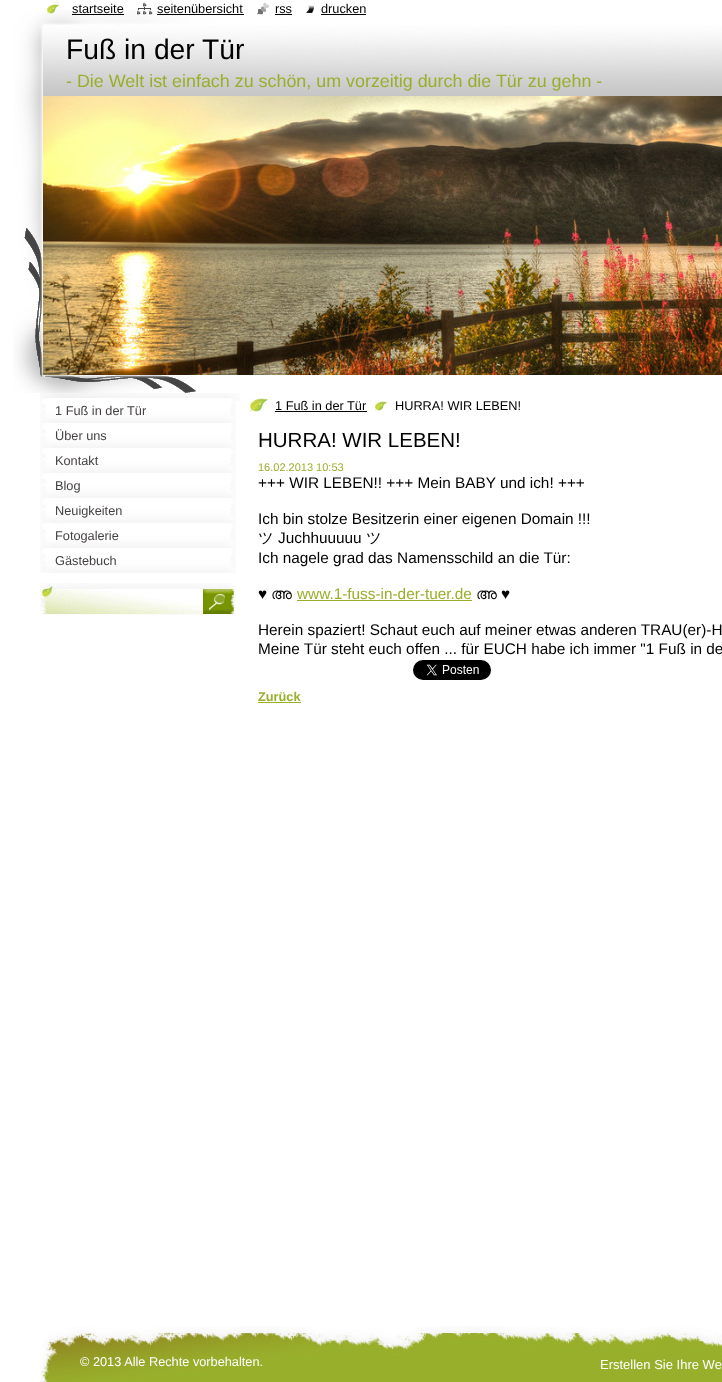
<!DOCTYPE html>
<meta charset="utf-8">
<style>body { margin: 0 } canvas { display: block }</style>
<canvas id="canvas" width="722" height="1382"></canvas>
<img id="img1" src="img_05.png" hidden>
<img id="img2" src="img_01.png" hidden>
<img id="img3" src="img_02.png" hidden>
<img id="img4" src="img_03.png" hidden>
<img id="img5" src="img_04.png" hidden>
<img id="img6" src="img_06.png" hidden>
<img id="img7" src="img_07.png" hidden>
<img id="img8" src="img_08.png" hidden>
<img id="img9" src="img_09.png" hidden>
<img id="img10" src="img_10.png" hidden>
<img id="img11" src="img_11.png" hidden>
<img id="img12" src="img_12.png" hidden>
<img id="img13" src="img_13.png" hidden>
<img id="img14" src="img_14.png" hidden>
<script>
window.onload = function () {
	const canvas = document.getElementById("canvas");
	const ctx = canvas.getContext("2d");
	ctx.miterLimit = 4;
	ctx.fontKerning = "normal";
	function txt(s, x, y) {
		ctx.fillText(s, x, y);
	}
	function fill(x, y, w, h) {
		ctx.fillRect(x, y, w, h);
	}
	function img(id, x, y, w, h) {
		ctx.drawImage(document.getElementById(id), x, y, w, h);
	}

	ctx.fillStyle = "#FFFFFF";
	fill(0, 0, 722, 1382);
	img("img1", 13, 10, 709, 383);
	img("img2", 47, 4, 12, 10);
	ctx.fillStyle = "#000000";
	fill(72, 14, 52, 1);
	img("img3", 137, 2, 16, 13);
	fill(157, 14, 87, 1);
	img("img4", 257, 3, 12, 12);
	fill(275, 14, 17, 1);
	img("img5", 306, 5, 8, 8);
	fill(321, 14, 45, 1);
	img("img6", 43, 96, 679, 279);
	img("img7", 40, 393, 200, 8);
	img("img8", 40, 398, 196, 25);
	img("img8", 40, 423, 196, 25);
	img("img8", 40, 448, 196, 25);
	img("img8", 40, 473, 196, 25);
	img("img8", 40, 498, 196, 25);
	img("img8", 40, 523, 196, 25);
	img("img8", 40, 548, 196, 25);
	img("img9", 40, 583, 163, 32);
	img("img10", 203, 583, 33, 32);
	img("img11", 250, 398, 18, 14);
	fill(275, 411, 92, 1);
	img("img12", 375, 401, 12, 10);
	ctx.fillStyle = "#98AF2B";
	fill(297, 600, 175, 1);
	img("img13", 413, 660, 78, 20);
	fill(258, 702, 43, 1);
	img("img14", 40, 1326, 682, 56);
	ctx.font = "12.75px Liberation Sans";
	ctx.fillStyle = "#000000";
	txt("startseite", 72, 13);
	txt("seitenübersicht", 157, 13);
	txt("rss", 275, 13);
	txt("drucken", 321, 13);
	ctx.font = "28.25px Liberation Sans";
	txt("Fuß in der Tür", 66, 59);
	ctx.font = "17.9px Liberation Sans";
	ctx.fillStyle = "#98AF2B";
	txt("- Die Welt ist einfach zu schön, um vorzeitig durch die Tür zu gehn -", 66, 87);
	ctx.font = "12.75px Liberation Sans";
	ctx.fillStyle = "#454143";
	txt("1 Fuß in der Tür", 55, 415);
	txt("Über uns", 55, 440);
	txt("Kontakt", 55, 465);
	txt("Blog", 55, 490);
	txt("Neuigkeiten", 55, 515);
	txt("Fotogalerie", 55, 540);
	txt("Gästebuch", 55, 565);
	ctx.fillStyle = "#000000";
	txt("1 Fuß in der Tür", 275, 410);
	txt("HURRA! WIR LEBEN!", 395, 410);
	ctx.font = "20.5px Liberation Sans";
	txt("HURRA! WIR LEBEN!", 258, 447);
	ctx.font = "11px Liberation Sans";
	ctx.fillStyle = "#98AF2B";
	txt("16.02.2013 10:53", 258, 471);
	ctx.font = "15.35px Liberation Sans";
	ctx.fillStyle = "#000000";
	txt("+++ WIR LEBEN!! +++ Mein BABY und ich! +++", 258, 488);
	txt("Ich bin stolze Besitzerin einer eigenen Domain !!!", 258, 524);
	ctx.font = "500 15.35px WenQuanYi Zen Hei";
	txt("ツ", 258, 543);
	ctx.font = "15.35px Liberation Sans";
	txt("Juchhuuuuu", 278, 543);
	ctx.font = "500 15.35px WenQuanYi Zen Hei";
	txt("ツ", 366, 543);
	ctx.font = "15.35px Liberation Sans";
	txt("Ich nagele grad das Namensschild an die Tür:", 258, 563);
	txt("♥", 258, 599);
	ctx.font = "15.35px FreeSans";
	txt("അ", 271, 599);
	ctx.font = "15.35px Liberation Sans";
	ctx.fillStyle = "#98AF2B";
	txt("www.1-fuss-in-der-tuer.de", 297, 599);
	ctx.font = "15.35px FreeSans";
	ctx.fillStyle = "#000000";
	txt("അ", 476, 599);
	ctx.font = "15.35px Liberation Sans";
	txt("♥", 501, 599);
	txt("Herein spaziert! Schaut euch auf meiner etwas anderen TRAU(er)-H", 258, 635);
	txt("Meine Tür steht euch offen ... für EUCH habe ich immer \"1 Fuß in de", 258, 654);
	ctx.font = "bold 12.75px Liberation Sans";
	ctx.fillStyle = "#98AF2B";
	txt("Zurück", 258, 701);
	ctx.font = "12.75px Liberation Sans";
	ctx.fillStyle = "#FFFFFF";
	txt("© 2013 Alle Rechte vorbehalten.", 80, 1366);
	ctx.font = "13px Liberation Sans";
	txt("Erstellen Sie Ihre We", 600, 1369);
};
</script>
